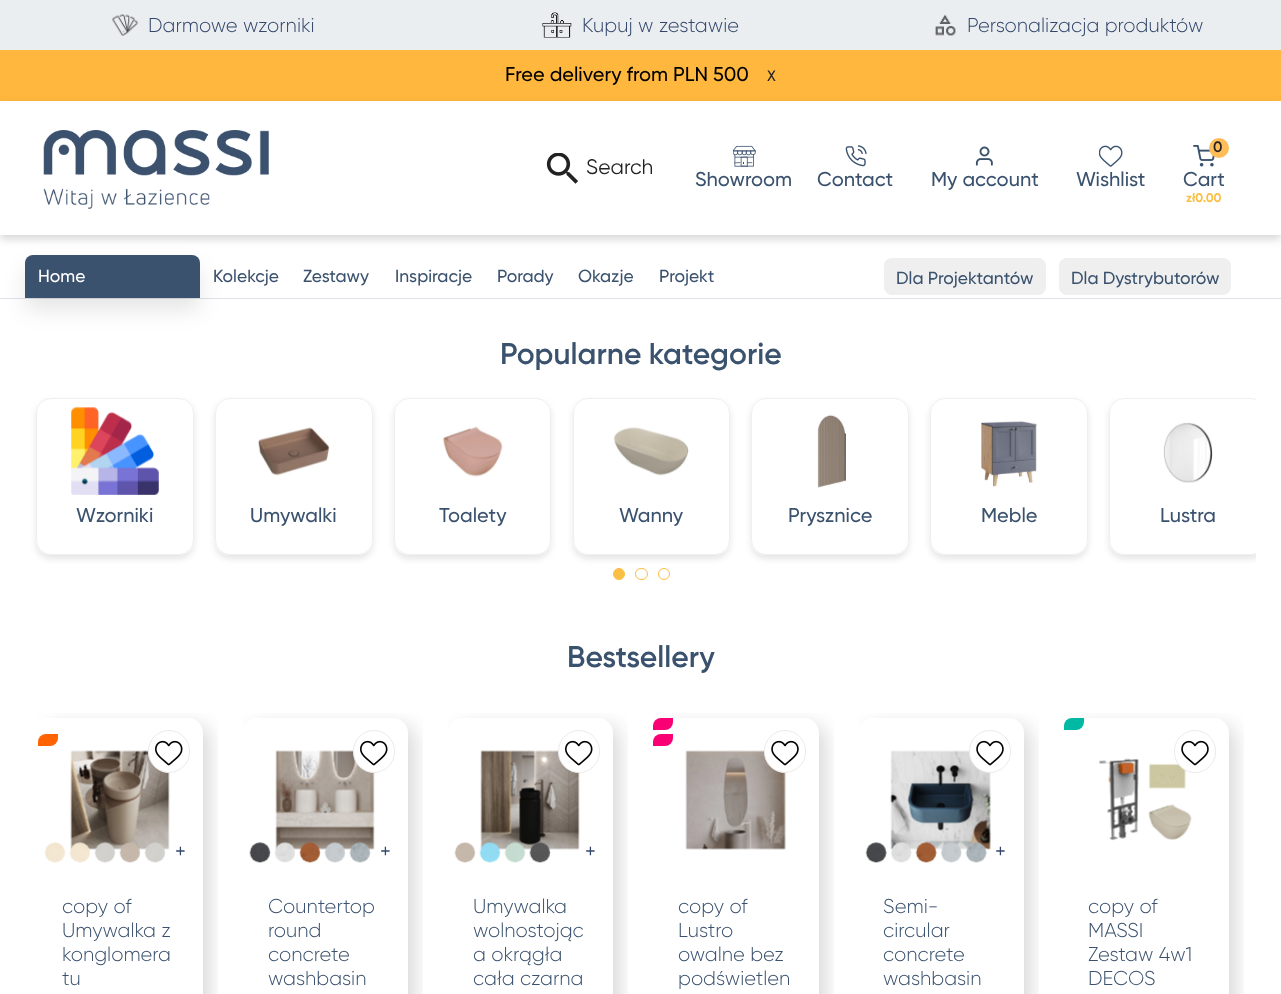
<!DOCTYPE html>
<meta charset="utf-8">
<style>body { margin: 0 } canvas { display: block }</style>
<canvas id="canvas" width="1281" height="994"></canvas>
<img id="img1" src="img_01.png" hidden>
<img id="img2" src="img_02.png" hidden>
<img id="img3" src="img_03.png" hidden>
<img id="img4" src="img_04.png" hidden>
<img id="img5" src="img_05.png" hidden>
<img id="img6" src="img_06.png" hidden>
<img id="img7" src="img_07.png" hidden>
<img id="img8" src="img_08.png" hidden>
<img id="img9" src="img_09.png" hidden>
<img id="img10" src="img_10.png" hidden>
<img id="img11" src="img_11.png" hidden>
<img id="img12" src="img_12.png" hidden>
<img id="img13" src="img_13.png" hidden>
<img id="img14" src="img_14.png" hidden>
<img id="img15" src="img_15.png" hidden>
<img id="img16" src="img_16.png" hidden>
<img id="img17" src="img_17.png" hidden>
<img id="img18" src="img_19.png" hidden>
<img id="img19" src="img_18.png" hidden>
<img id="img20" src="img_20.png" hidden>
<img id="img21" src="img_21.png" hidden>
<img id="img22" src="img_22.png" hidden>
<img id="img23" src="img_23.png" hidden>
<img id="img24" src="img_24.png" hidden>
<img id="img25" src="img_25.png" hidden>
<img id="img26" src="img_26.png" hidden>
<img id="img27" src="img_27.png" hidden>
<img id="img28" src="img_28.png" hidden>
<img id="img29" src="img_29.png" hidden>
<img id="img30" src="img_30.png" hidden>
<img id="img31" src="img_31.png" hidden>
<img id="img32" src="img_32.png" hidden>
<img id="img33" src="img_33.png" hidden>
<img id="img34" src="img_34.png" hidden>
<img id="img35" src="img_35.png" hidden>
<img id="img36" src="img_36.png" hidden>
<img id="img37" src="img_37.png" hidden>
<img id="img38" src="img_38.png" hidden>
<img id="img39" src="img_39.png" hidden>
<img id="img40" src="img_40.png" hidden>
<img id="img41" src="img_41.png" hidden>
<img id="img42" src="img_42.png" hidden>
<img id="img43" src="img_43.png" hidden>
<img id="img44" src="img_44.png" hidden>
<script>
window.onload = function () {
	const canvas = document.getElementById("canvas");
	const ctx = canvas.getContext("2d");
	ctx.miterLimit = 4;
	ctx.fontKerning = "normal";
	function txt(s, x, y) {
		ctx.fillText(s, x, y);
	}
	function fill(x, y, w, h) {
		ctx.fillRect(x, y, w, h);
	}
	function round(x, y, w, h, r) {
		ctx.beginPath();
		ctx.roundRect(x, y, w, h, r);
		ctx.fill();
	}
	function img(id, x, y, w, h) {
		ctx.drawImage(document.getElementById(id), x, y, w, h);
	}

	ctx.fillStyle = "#FFFFFF";
	fill(0, 0, 1281, 994);
	ctx.fillStyle = "#EBEEF1";
	fill(0, 0, 1281, 50);
	img("img1", 112, 14, 26, 22);
	img("img2", 542, 12, 30, 26);
	img("img3", 935, 14, 21, 22);
	ctx.fillStyle = "#DEE2E6";
	fill(0, 298, 1281, 1);
	ctx.fillStyle = "#FFB73E";
	fill(0, 50, 1281, 51);
	ctx.save();
	ctx.beginPath();
	ctx.moveTo(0, 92);
	ctx.lineTo(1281, 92);
	ctx.lineTo(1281, 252);
	ctx.lineTo(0, 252);
	ctx.closePath();
	ctx.moveTo(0, 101);
	ctx.lineTo(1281, 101);
	ctx.lineTo(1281, 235);
	ctx.lineTo(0, 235);
	ctx.closePath();
	ctx.clip("evenodd");
	ctx.fillStyle = "rgba(0, 0, 0, 0.16)";
	ctx.filter = "blur(4px)";
	ctx.beginPath();
	ctx.rect(0, 105, 1281, 134);
	ctx.fill();
	ctx.filter = "none";
	ctx.restore();
	img("img4", 43, 130, 226, 79);
	img("img5", 546, 153, 32, 31);
	img("img6", 1193, 145, 22, 22);
	ctx.fillStyle = "#FFBD59";
	ctx.beginPath();
	ctx.arc(1219, 148, 10, 0, Math.PI * 2);
	ctx.fill();
	img("img7", 733, 145, 23, 22);
	img("img8", 845, 145, 22, 22);
	img("img9", 975, 146, 18, 20);
	img("img10", 1099, 145, 24, 22);
	ctx.fillStyle = "rgba(0, 0, 0, 0.1)";
	ctx.filter = "blur(11px)";
	ctx.beginPath();
	ctx.roundRect(25, 268, 175, 42, 8);
	ctx.fill();
	ctx.filter = "none";
	ctx.fillStyle = "#3B526E";
	ctx.beginPath();
	ctx.roundRect(25, 255, 175, 43, [8, 8, 0, 0]);
	ctx.fill();
	ctx.fillStyle = "#EFEFEF";
	round(884, 258, 162, 37, 8);
	round(1059, 258, 172, 37, 8);
	ctx.save();
	ctx.beginPath();
	ctx.moveTo(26, 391);
	ctx.lineTo(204, 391);
	ctx.lineTo(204, 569);
	ctx.lineTo(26, 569);
	ctx.closePath();
	ctx.moveTo(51, 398);
	ctx.lineTo(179, 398);
	ctx.bezierCurveTo(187.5, 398, 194, 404.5, 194, 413);
	ctx.lineTo(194, 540);
	ctx.bezierCurveTo(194, 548.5, 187.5, 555, 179, 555);
	ctx.lineTo(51, 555);
	ctx.bezierCurveTo(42.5, 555, 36, 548.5, 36, 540);
	ctx.lineTo(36, 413);
	ctx.bezierCurveTo(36, 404.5, 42.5, 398, 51, 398);
	ctx.closePath();
	ctx.clip("evenodd");
	ctx.fillStyle = "rgba(0, 0, 0, 0.1)";
	ctx.filter = "blur(3px)";
	ctx.beginPath();
	ctx.roundRect(36, 401, 158, 158, 15);
	ctx.fill();
	ctx.filter = "none";
	ctx.restore();
	ctx.beginPath();
	ctx.roundRect(36.5, 398.5, 157, 156, 14.5);
	ctx.strokeStyle = "#EFEFEF";
	ctx.stroke();
	img("img11", 71, 407, 88, 88);
	ctx.save();
	ctx.beginPath();
	ctx.moveTo(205, 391);
	ctx.lineTo(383, 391);
	ctx.lineTo(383, 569);
	ctx.lineTo(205, 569);
	ctx.closePath();
	ctx.moveTo(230, 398);
	ctx.lineTo(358, 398);
	ctx.bezierCurveTo(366.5, 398, 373, 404.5, 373, 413);
	ctx.lineTo(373, 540);
	ctx.bezierCurveTo(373, 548.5, 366.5, 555, 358, 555);
	ctx.lineTo(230, 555);
	ctx.bezierCurveTo(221.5, 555, 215, 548.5, 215, 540);
	ctx.lineTo(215, 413);
	ctx.bezierCurveTo(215, 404.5, 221.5, 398, 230, 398);
	ctx.closePath();
	ctx.clip("evenodd");
	ctx.fillStyle = "rgba(0, 0, 0, 0.1)";
	ctx.filter = "blur(3px)";
	ctx.beginPath();
	ctx.roundRect(215, 401, 158, 158, 15);
	ctx.fill();
	ctx.filter = "none";
	ctx.restore();
	ctx.beginPath();
	ctx.roundRect(215.5, 398.5, 157, 156, 14.5);
	ctx.stroke();
	img("img12", 258, 427, 72, 49);
	ctx.save();
	ctx.beginPath();
	ctx.moveTo(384, 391);
	ctx.lineTo(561, 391);
	ctx.lineTo(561, 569);
	ctx.lineTo(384, 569);
	ctx.closePath();
	ctx.moveTo(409, 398);
	ctx.lineTo(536, 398);
	ctx.bezierCurveTo(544.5, 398, 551, 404.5, 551, 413);
	ctx.lineTo(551, 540);
	ctx.bezierCurveTo(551, 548.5, 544.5, 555, 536, 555);
	ctx.lineTo(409, 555);
	ctx.bezierCurveTo(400.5, 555, 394, 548.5, 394, 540);
	ctx.lineTo(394, 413);
	ctx.bezierCurveTo(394, 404.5, 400.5, 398, 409, 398);
	ctx.closePath();
	ctx.clip("evenodd");
	ctx.fillStyle = "rgba(0, 0, 0, 0.1)";
	ctx.filter = "blur(3px)";
	ctx.beginPath();
	ctx.roundRect(394, 401, 157, 158, 15);
	ctx.fill();
	ctx.filter = "none";
	ctx.restore();
	ctx.beginPath();
	ctx.roundRect(394.5, 398.5, 156, 156, 14.5);
	ctx.stroke();
	img("img13", 442, 426, 61, 51);
	ctx.save();
	ctx.beginPath();
	ctx.moveTo(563, 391);
	ctx.lineTo(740, 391);
	ctx.lineTo(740, 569);
	ctx.lineTo(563, 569);
	ctx.closePath();
	ctx.moveTo(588, 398);
	ctx.lineTo(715, 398);
	ctx.bezierCurveTo(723.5, 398, 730, 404.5, 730, 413);
	ctx.lineTo(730, 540);
	ctx.bezierCurveTo(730, 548.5, 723.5, 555, 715, 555);
	ctx.lineTo(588, 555);
	ctx.bezierCurveTo(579.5, 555, 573, 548.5, 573, 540);
	ctx.lineTo(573, 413);
	ctx.bezierCurveTo(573, 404.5, 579.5, 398, 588, 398);
	ctx.closePath();
	ctx.clip("evenodd");
	ctx.fillStyle = "rgba(0, 0, 0, 0.1)";
	ctx.filter = "blur(3px)";
	ctx.beginPath();
	ctx.roundRect(573, 401, 157, 158, 15);
	ctx.fill();
	ctx.filter = "none";
	ctx.restore();
	ctx.beginPath();
	ctx.roundRect(573.5, 398.5, 156, 156, 14.5);
	ctx.stroke();
	img("img14", 613, 427, 76, 49);
	ctx.save();
	ctx.beginPath();
	ctx.moveTo(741, 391);
	ctx.lineTo(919, 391);
	ctx.lineTo(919, 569);
	ctx.lineTo(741, 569);
	ctx.closePath();
	ctx.moveTo(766, 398);
	ctx.lineTo(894, 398);
	ctx.bezierCurveTo(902.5, 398, 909, 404.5, 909, 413);
	ctx.lineTo(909, 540);
	ctx.bezierCurveTo(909, 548.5, 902.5, 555, 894, 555);
	ctx.lineTo(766, 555);
	ctx.bezierCurveTo(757.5, 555, 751, 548.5, 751, 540);
	ctx.lineTo(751, 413);
	ctx.bezierCurveTo(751, 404.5, 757.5, 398, 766, 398);
	ctx.closePath();
	ctx.clip("evenodd");
	ctx.fillStyle = "rgba(0, 0, 0, 0.1)";
	ctx.filter = "blur(3px)";
	ctx.beginPath();
	ctx.roundRect(751, 401, 158, 158, 15);
	ctx.fill();
	ctx.filter = "none";
	ctx.restore();
	ctx.beginPath();
	ctx.roundRect(751.5, 398.5, 157, 156, 14.5);
	ctx.stroke();
	img("img15", 817, 414, 29, 74);
	ctx.save();
	ctx.beginPath();
	ctx.moveTo(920, 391);
	ctx.lineTo(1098, 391);
	ctx.lineTo(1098, 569);
	ctx.lineTo(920, 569);
	ctx.closePath();
	ctx.moveTo(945, 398);
	ctx.lineTo(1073, 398);
	ctx.bezierCurveTo(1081.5, 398, 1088, 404.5, 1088, 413);
	ctx.lineTo(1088, 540);
	ctx.bezierCurveTo(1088, 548.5, 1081.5, 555, 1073, 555);
	ctx.lineTo(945, 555);
	ctx.bezierCurveTo(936.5, 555, 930, 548.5, 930, 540);
	ctx.lineTo(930, 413);
	ctx.bezierCurveTo(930, 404.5, 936.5, 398, 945, 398);
	ctx.closePath();
	ctx.clip("evenodd");
	ctx.fillStyle = "rgba(0, 0, 0, 0.1)";
	ctx.filter = "blur(3px)";
	ctx.beginPath();
	ctx.roundRect(930, 401, 158, 158, 15);
	ctx.fill();
	ctx.filter = "none";
	ctx.restore();
	ctx.beginPath();
	ctx.roundRect(930.5, 398.5, 157, 156, 14.5);
	ctx.stroke();
	img("img16", 981, 421, 56, 66);
	ctx.save();
	ctx.beginPath();
	ctx.rect(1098, 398, 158, 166);
	ctx.clip();
	ctx.beginPath();
	ctx.moveTo(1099, 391);
	ctx.lineTo(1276, 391);
	ctx.lineTo(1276, 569);
	ctx.lineTo(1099, 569);
	ctx.closePath();
	ctx.moveTo(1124, 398);
	ctx.lineTo(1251, 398);
	ctx.bezierCurveTo(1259.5, 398, 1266, 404.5, 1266, 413);
	ctx.lineTo(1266, 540);
	ctx.bezierCurveTo(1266, 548.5, 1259.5, 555, 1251, 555);
	ctx.lineTo(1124, 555);
	ctx.bezierCurveTo(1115.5, 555, 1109, 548.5, 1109, 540);
	ctx.lineTo(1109, 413);
	ctx.bezierCurveTo(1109, 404.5, 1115.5, 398, 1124, 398);
	ctx.closePath();
	ctx.clip("evenodd");
	ctx.fillStyle = "rgba(0, 0, 0, 0.1)";
	ctx.filter = "blur(3px)";
	ctx.beginPath();
	ctx.roundRect(1109, 401, 157, 158, 15);
	ctx.fill();
	ctx.filter = "none";
	ctx.restore();
	ctx.save();
	ctx.beginPath();
	ctx.rect(1098, 398, 158, 166);
	ctx.clip();
	ctx.beginPath();
	ctx.roundRect(1109.5, 398.5, 156, 156, 14.5);
	ctx.stroke();
	ctx.restore();
	img("img17", 1163, 422, 50, 61);
	ctx.fillStyle = "#FBBF45";
	ctx.beginPath();
	ctx.arc(619, 574, 5.5, 0, Math.PI * 2);
	ctx.fill();
	ctx.strokeStyle = "#FBBF45";
	ctx.stroke();
	ctx.beginPath();
	ctx.roundRect(635.5, 568.5, 12, 11, 5.5);
	ctx.stroke();
	ctx.beginPath();
	ctx.arc(664, 574, 5.5, 0, Math.PI * 2);
	ctx.stroke();
	ctx.save();
	ctx.beginPath();
	ctx.rect(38, 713, 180, 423);
	ctx.clip();
	ctx.fillStyle = "rgba(0, 0, 0, 0.15)";
	ctx.filter = "blur(9.5px)";
	ctx.beginPath();
	ctx.roundRect(45, 725, 165, 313, 15);
	ctx.fill();
	ctx.filter = "none";
	ctx.restore();
	ctx.fillStyle = "#FFFFFF";
	round(38, 718, 165, 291, 15);
	img("img18", 70, 750, 100, 100);
	ctx.beginPath();
	ctx.roundRect(148.5, 730.5, 41, 42, 20.5);
	ctx.fill();
	ctx.strokeStyle = "#EBEBEB";
	ctx.stroke();
	img("img19", 155, 740, 28, 26);
	ctx.beginPath();
	ctx.roundRect(38, 718, 20, 12, [8, 0, 8, 0]);
	ctx.fill();
	ctx.fillStyle = "#FF6302";
	ctx.beginPath();
	ctx.roundRect(38, 734, 20, 12, [8, 0, 8, 0]);
	ctx.fill();
	img("img20", 44, 842, 22, 21);
	img("img21", 69, 842, 22, 21);
	img("img22", 94, 842, 22, 21);
	img("img23", 119, 842, 22, 21);
	img("img24", 144, 842, 22, 21);
	ctx.save();
	ctx.beginPath();
	ctx.rect(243, 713, 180, 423);
	ctx.clip();
	ctx.fillStyle = "rgba(0, 0, 0, 0.15)";
	ctx.filter = "blur(9.5px)";
	ctx.beginPath();
	ctx.roundRect(250, 725, 165, 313, 15);
	ctx.fill();
	ctx.filter = "none";
	ctx.restore();
	ctx.fillStyle = "#FFFFFF";
	round(243, 718, 165, 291, 15);
	img("img25", 275, 750, 100, 100);
	ctx.beginPath();
	ctx.roundRect(353.5, 730.5, 41, 42, 20.5);
	ctx.fill();
	ctx.stroke();
	img("img19", 360, 740, 28, 26);
	img("img26", 249, 842, 22, 21);
	img("img27", 274, 842, 22, 21);
	img("img28", 299, 842, 22, 21);
	img("img29", 324, 842, 22, 21);
	img("img30", 349, 842, 22, 21);
	ctx.save();
	ctx.beginPath();
	ctx.rect(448, 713, 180, 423);
	ctx.clip();
	ctx.fillStyle = "rgba(0, 0, 0, 0.15)";
	ctx.filter = "blur(9.5px)";
	ctx.beginPath();
	ctx.roundRect(455, 725, 165, 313, 15);
	ctx.fill();
	ctx.filter = "none";
	ctx.restore();
	round(448, 718, 165, 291, 15);
	img("img31", 480, 750, 100, 100);
	ctx.beginPath();
	ctx.roundRect(558.5, 730.5, 41, 42, 20.5);
	ctx.fill();
	ctx.stroke();
	img("img19", 565, 740, 28, 26);
	img("img32", 454, 842, 22, 21);
	img("img33", 479, 842, 22, 21);
	img("img34", 504, 842, 22, 21);
	img("img35", 529, 842, 22, 21);
	ctx.save();
	ctx.beginPath();
	ctx.rect(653, 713, 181, 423);
	ctx.clip();
	ctx.fillStyle = "rgba(0, 0, 0, 0.15)";
	ctx.filter = "blur(9.5px)";
	ctx.beginPath();
	ctx.roundRect(660, 725, 166, 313, 15);
	ctx.fill();
	ctx.filter = "none";
	ctx.restore();
	round(653, 718, 166, 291, 15);
	ctx.fillStyle = "#F90074";
	ctx.beginPath();
	ctx.roundRect(653, 718, 20, 12, [8, 0, 8, 0]);
	ctx.fill();
	ctx.beginPath();
	ctx.roundRect(653, 734, 20, 12, [8, 0, 8, 0]);
	ctx.fill();
	img("img36", 685, 750, 101, 100);
	ctx.fillStyle = "#FFFFFF";
	ctx.beginPath();
	ctx.roundRect(764.5, 730.5, 41, 42, 20.5);
	ctx.fill();
	ctx.stroke();
	img("img37", 771, 740, 28, 26);
	ctx.save();
	ctx.beginPath();
	ctx.rect(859, 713, 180, 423);
	ctx.clip();
	ctx.fillStyle = "rgba(0, 0, 0, 0.15)";
	ctx.filter = "blur(9.5px)";
	ctx.beginPath();
	ctx.roundRect(866, 725, 165, 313, 15);
	ctx.fill();
	ctx.filter = "none";
	ctx.restore();
	round(859, 718, 165, 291, 15);
	img("img38", 890, 750, 101, 100);
	ctx.beginPath();
	ctx.roundRect(969.5, 730.5, 41, 42, 20.5);
	ctx.fill();
	ctx.stroke();
	img("img37", 976, 740, 28, 26);
	img("img39", 865, 842, 22, 21);
	img("img40", 890, 842, 22, 21);
	img("img41", 915, 842, 22, 21);
	img("img42", 940, 842, 22, 21);
	img("img43", 965, 842, 22, 21);
	ctx.save();
	ctx.beginPath();
	ctx.rect(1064, 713, 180, 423);
	ctx.clip();
	ctx.fillStyle = "rgba(0, 0, 0, 0.15)";
	ctx.filter = "blur(9.5px)";
	ctx.beginPath();
	ctx.roundRect(1071, 725, 165, 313, 15);
	ctx.fill();
	ctx.filter = "none";
	ctx.restore();
	round(1064, 718, 165, 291, 15);
	ctx.fillStyle = "#00B9A4";
	ctx.beginPath();
	ctx.roundRect(1064, 718, 20, 12, [8, 0, 8, 0]);
	ctx.fill();
	img("img44", 1099, 758, 93, 83);
	ctx.fillStyle = "#FFFFFF";
	ctx.beginPath();
	ctx.roundRect(1174.5, 730.5, 41, 42, 20.5);
	ctx.fill();
	ctx.stroke();
	img("img37", 1181, 740, 28, 26);
	ctx.font = "300 20px Gilroy";
	ctx.fillStyle = "#34476B";
	txt("Darmowe wzorniki", 148, 32);
	txt("Kupuj w zestawie", 582, 32);
	txt("Personalizacja produktów", 967, 32);
	ctx.font = "500 20px Gilroy";
	ctx.fillStyle = "#000000";
	txt("Free delivery from PLN 500", 505, 81);
	ctx.font = "500 15px Gilroy";
	ctx.fillStyle = "#222222";
	txt("X", 767, 81);
	ctx.font = "21px Gilroy";
	txt("Search", 586, 174);
	ctx.font = "600 15px Gilroy";
	txt("0", 1213, 152);
	ctx.font = "500 20px Gilroy";
	ctx.fillStyle = "#3B526E";
	txt("Cart", 1183, 186);
	ctx.font = "bold 12.5px Gilroy";
	ctx.fillStyle = "#FBBF45";
	txt("zł0.00", 1186, 202);
	ctx.font = "500 20px Gilroy";
	ctx.fillStyle = "#3B526E";
	txt("Showroom", 695, 186);
	txt("Contact", 817, 186);
	txt("My account", 931, 186);
	txt("Wishlist", 1076, 186);
	ctx.font = "500 17.5px Gilroy";
	ctx.fillStyle = "#FFFFFF";
	txt("Home", 38, 282);
	ctx.fillStyle = "#3B526E";
	txt("Kolekcje", 213, 282);
	txt("Zestawy", 303, 282);
	txt("Inspiracje", 395, 282);
	txt("Porady", 497, 282);
	txt("Okazje", 578, 282);
	txt("Projekt", 659, 282);
	txt("Dla Projektantów", 896, 284);
	txt("Dla Dystrybutorów", 1071, 284);
	ctx.font = "600 30px Gilroy";
	txt("Popularne kategorie", 500, 364);
	ctx.font = "500 20px Gilroy";
	txt("Wzorniki", 76, 522);
	txt("Umywalki", 250, 522);
	txt("Toalety", 439, 522);
	txt("Wanny", 619, 522);
	txt("Prysznice", 788, 522);
	txt("Meble", 981, 522);
	txt("Lustra", 1160, 522);
	ctx.font = "600 30px Gilroy";
	txt("Bestsellery", 567, 667);
	ctx.font = "20px Gilroy";
	ctx.fillStyle = "#34476B";
	txt("+", 175, 858);
	ctx.font = "300 20px Gilroy";
	ctx.fillStyle = "#3B526E";
	txt("copy of", 62, 913);
	txt("Umywalka z", 62, 937);
	txt("konglomera", 62, 961);
	txt("tu", 62, 985);
	ctx.font = "20px Gilroy";
	ctx.fillStyle = "#34476B";
	txt("+", 380, 858);
	ctx.font = "300 20px Gilroy";
	ctx.fillStyle = "#3B526E";
	txt("Countertop", 268, 913);
	txt("round", 268, 937);
	txt("concrete", 268, 961);
	txt("washbasin", 268, 985);
	ctx.font = "20px Gilroy";
	ctx.fillStyle = "#34476B";
	txt("+", 585, 858);
	ctx.font = "300 20px Gilroy";
	ctx.fillStyle = "#3B526E";
	txt("Umywalka", 473, 913);
	txt("wolnostojąc", 473, 937);
	txt("a okrągła", 473, 961);
	txt("cała czarna", 473, 985);
	txt("copy of", 678, 913);
	txt("Lustro", 678, 937);
	txt("owalne bez", 678, 961);
	txt("podświetlen", 678, 985);
	ctx.font = "20px Gilroy";
	ctx.fillStyle = "#34476B";
	txt("+", 995, 858);
	ctx.font = "300 20px Gilroy";
	ctx.fillStyle = "#3B526E";
	txt("Semi-", 883, 913);
	txt("circular", 883, 937);
	txt("concrete", 883, 961);
	txt("washbasin", 883, 985);
	txt("copy of", 1088, 913);
	txt("MASSI", 1088, 937);
	txt("Zestaw 4w1", 1088, 961);
	txt("DECOS", 1088, 985);
};
</script>
